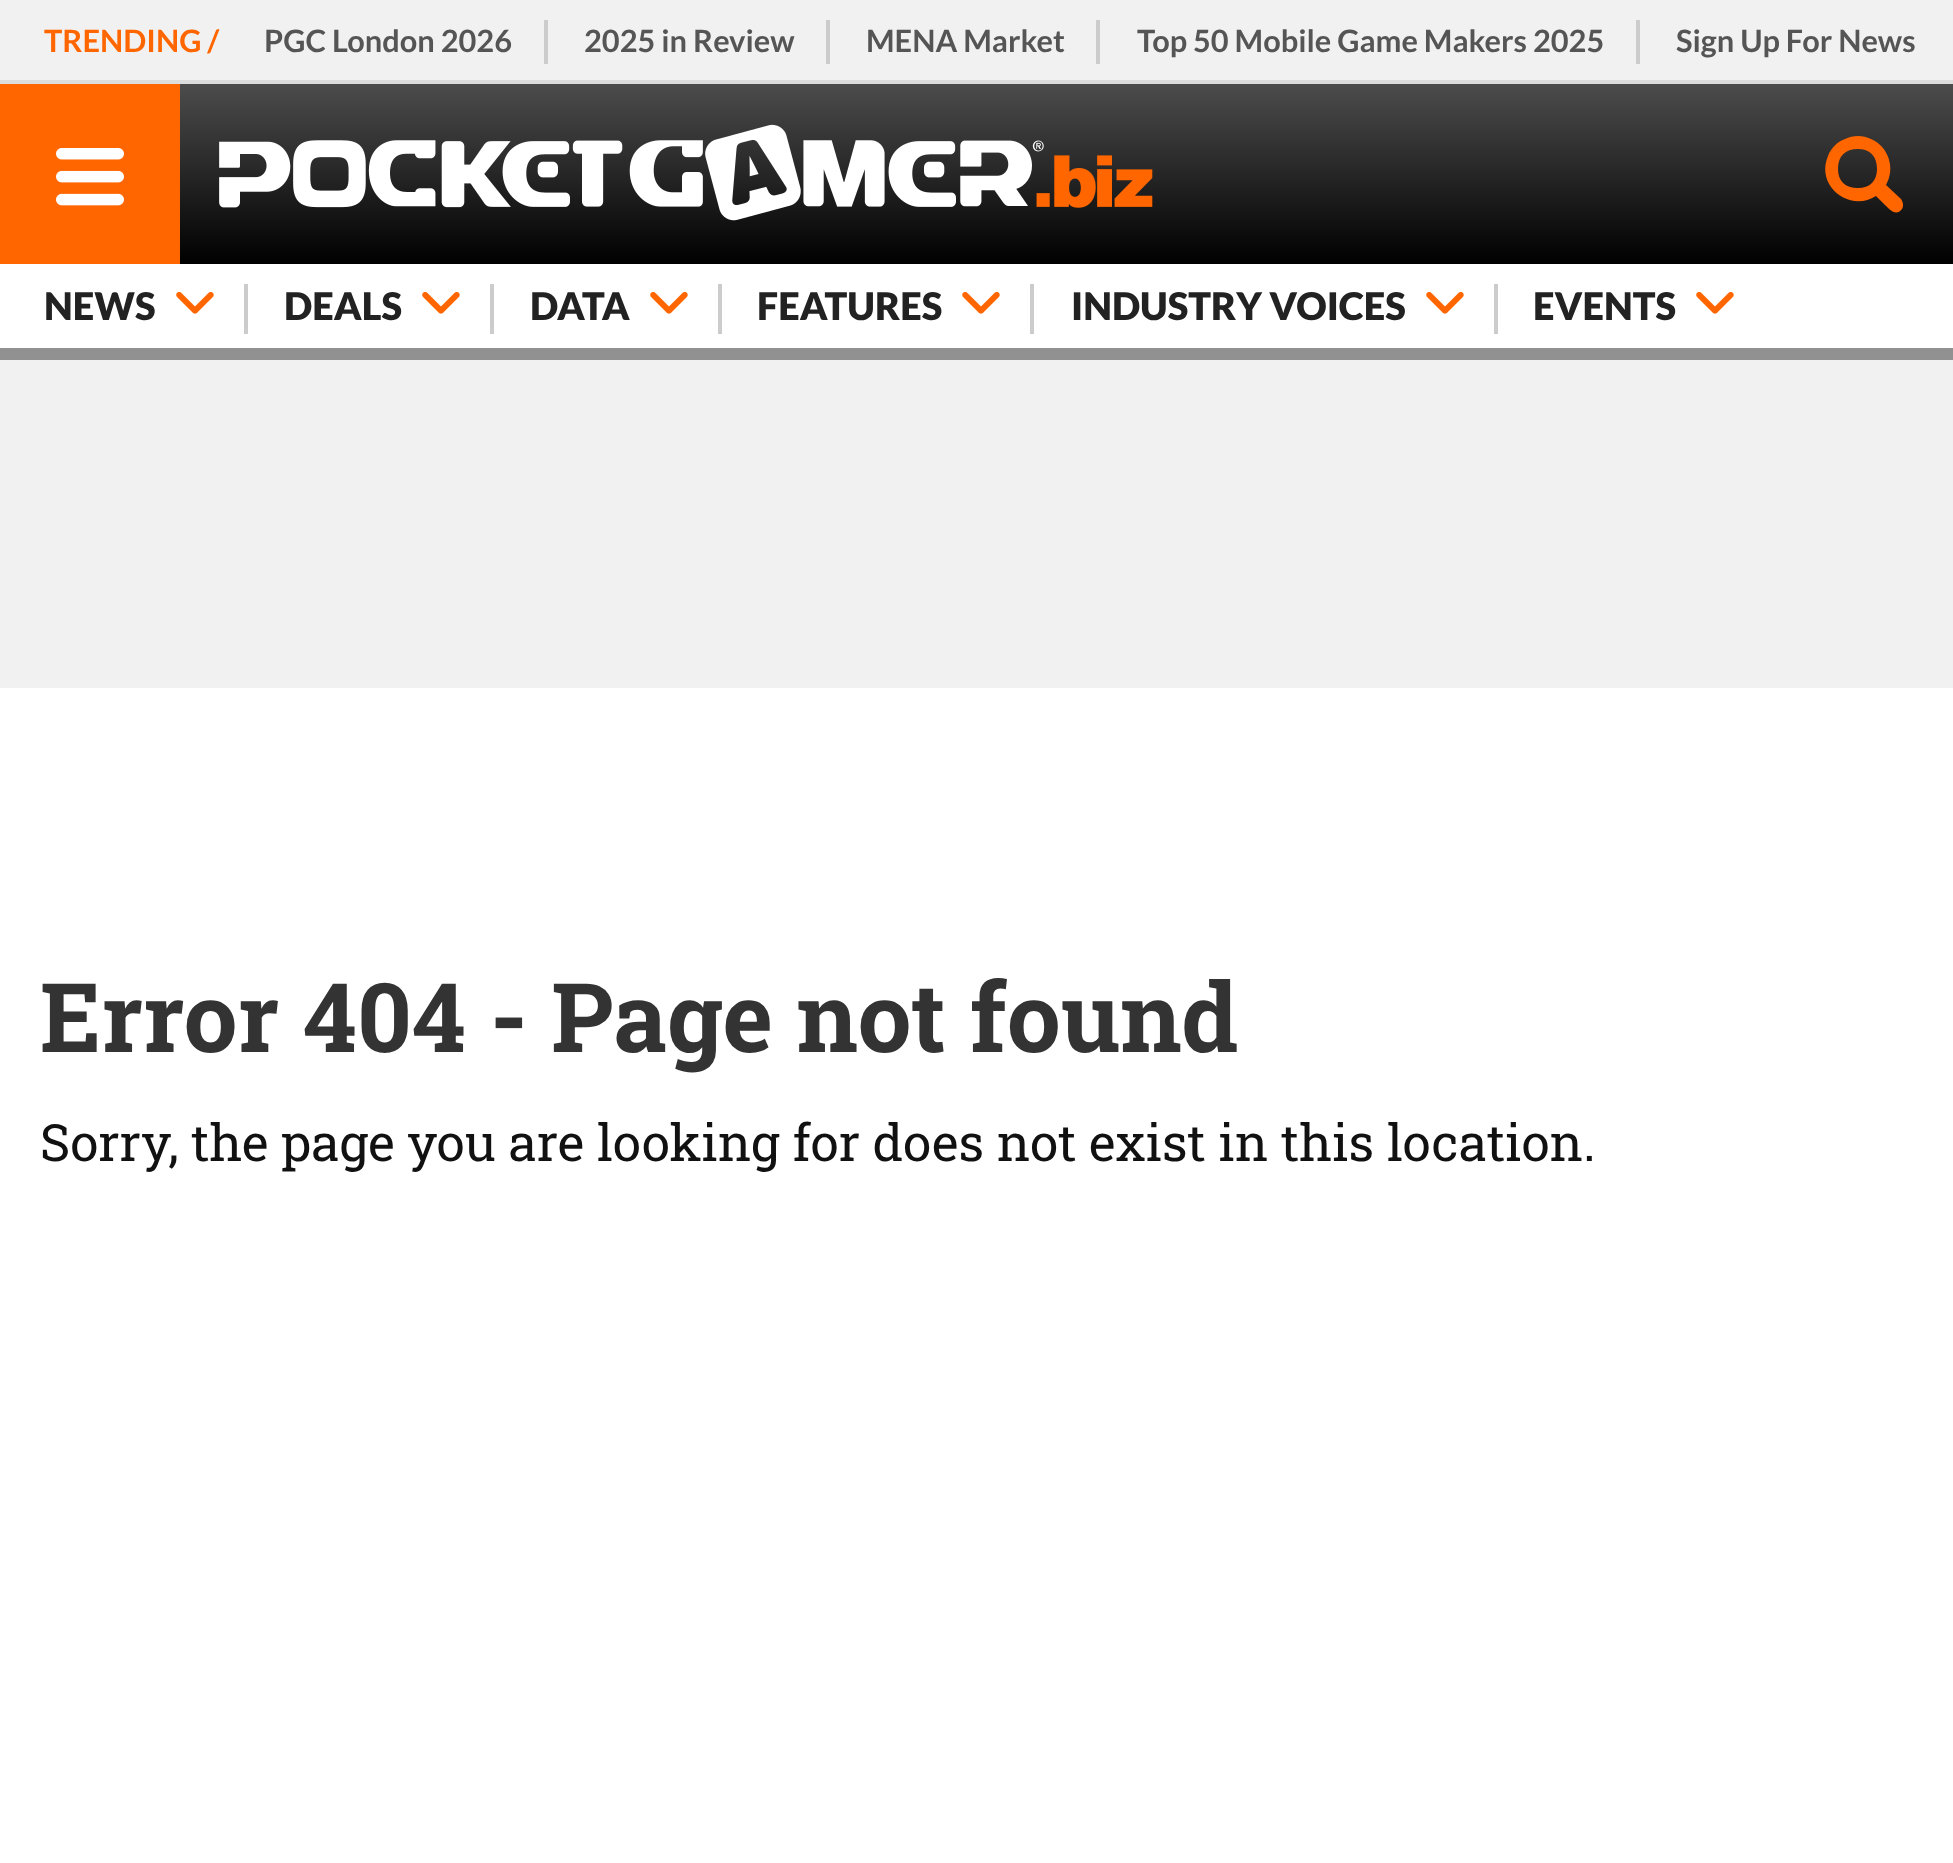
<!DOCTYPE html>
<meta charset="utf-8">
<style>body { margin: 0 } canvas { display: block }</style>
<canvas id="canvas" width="1953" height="1863"></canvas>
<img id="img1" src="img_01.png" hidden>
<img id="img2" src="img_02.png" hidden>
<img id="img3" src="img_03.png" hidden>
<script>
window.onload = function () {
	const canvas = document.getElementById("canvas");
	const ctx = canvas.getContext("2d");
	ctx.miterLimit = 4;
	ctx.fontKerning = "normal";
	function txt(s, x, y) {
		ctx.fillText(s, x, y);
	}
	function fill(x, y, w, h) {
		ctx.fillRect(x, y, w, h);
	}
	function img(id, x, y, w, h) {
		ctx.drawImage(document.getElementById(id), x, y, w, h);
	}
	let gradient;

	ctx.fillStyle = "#F1F1F1";
	fill(0, 0, 1953, 1863);
	ctx.fillStyle = "#919191";
	fill(0, 348, 1953, 12);
	ctx.fillStyle = "#DDDDDD";
	fill(0, 80, 1953, 4);
	ctx.fillStyle = "#CCCCCC";
	fill(544, 20, 4, 44);
	fill(826, 20, 4, 44);
	fill(1096, 20, 4, 44);
	fill(1636, 20, 4, 44);
	gradient = ctx.createLinearGradient(977, 264, 977, 84);
	gradient.addColorStop(0, "#000000");
	gradient.addColorStop(1, "#4C4C4C");
	ctx.fillStyle = gradient;
	fill(180, 84, 1773, 180);
	ctx.fillStyle = "#FF6600";
	fill(0, 84, 180, 180);
	img("img1", 56, 148, 68, 58);
	img("img2", 219, 124, 934, 97);
	ctx.beginPath();
	ctx.moveTo(1838, 169);
	ctx.bezierCurveTo(1838, 156, 1845, 149, 1858, 149);
	ctx.bezierCurveTo(1870, 149, 1877, 156, 1877, 169);
	ctx.bezierCurveTo(1877, 181, 1870, 188, 1858, 188);
	ctx.bezierCurveTo(1845, 188, 1838, 181, 1838, 169);
	ctx.moveTo(1901, 199);
	ctx.lineTo(1886, 185);
	ctx.bezierCurveTo(1896, 168, 1888, 146, 1871, 139);
	ctx.bezierCurveTo(1863, 135, 1853, 135, 1845, 139);
	ctx.bezierCurveTo(1837, 142, 1831, 148, 1828, 156);
	ctx.bezierCurveTo(1815, 186, 1850, 213, 1876, 196);
	ctx.lineTo(1885, 205);
	ctx.bezierCurveTo(1889, 209, 1896, 217, 1902, 209);
	ctx.bezierCurveTo(1904, 206, 1903, 202, 1901, 199);
	ctx.fill();
	ctx.fillStyle = "#FFFFFF";
	fill(0, 264, 1953, 84);
	img("img3", 176, 291, 38, 23);
	ctx.fillStyle = "#CCCCCC";
	fill(244, 284, 4, 50);
	img("img3", 422, 291, 38, 23);
	fill(490, 284, 4, 50);
	img("img3", 650, 291, 38, 23);
	fill(718, 284, 4, 50);
	img("img3", 962, 291, 38, 23);
	fill(1030, 284, 4, 50);
	img("img3", 1426, 291, 38, 23);
	fill(1494, 284, 4, 50);
	img("img3", 1696, 291, 38, 23);
	ctx.fillStyle = "#FFFFFF";
	fill(0, 688, 1953, 1175);
	ctx.font = "bold 30.75px Lato";
	ctx.fillStyle = "#FF6600";
	txt("TRENDING /", 44, 52);
	ctx.fillStyle = "#555555";
	txt("PGC London 2026", 264, 52);
	txt("2025 in Review", 584, 52);
	txt("MENA Market", 866, 52);
	txt("Top 50 Mobile Game Makers 2025", 1137, 52);
	txt("Sign Up For News", 1676, 52);
	ctx.font = "900 38px Lato";
	ctx.fillStyle = "#222222";
	txt("NEWS", 44, 320);
	txt("DEALS", 284, 320);
	txt("DATA", 530, 320);
	txt("FEATURES", 757, 320);
	txt("INDUSTRY VOICES", 1071, 320);
	txt("EVENTS", 1533, 320);
	ctx.font = "bold 96px Roboto Slab";
	ctx.fillStyle = "#333333";
	txt("Error 404 - Page not found", 40, 1052);
	ctx.font = "51.2px Roboto Slab";
	ctx.fillStyle = "#111111";
	txt("Sorry, the page you are looking for does not exist in this location.", 40, 1161);
};
</script>
